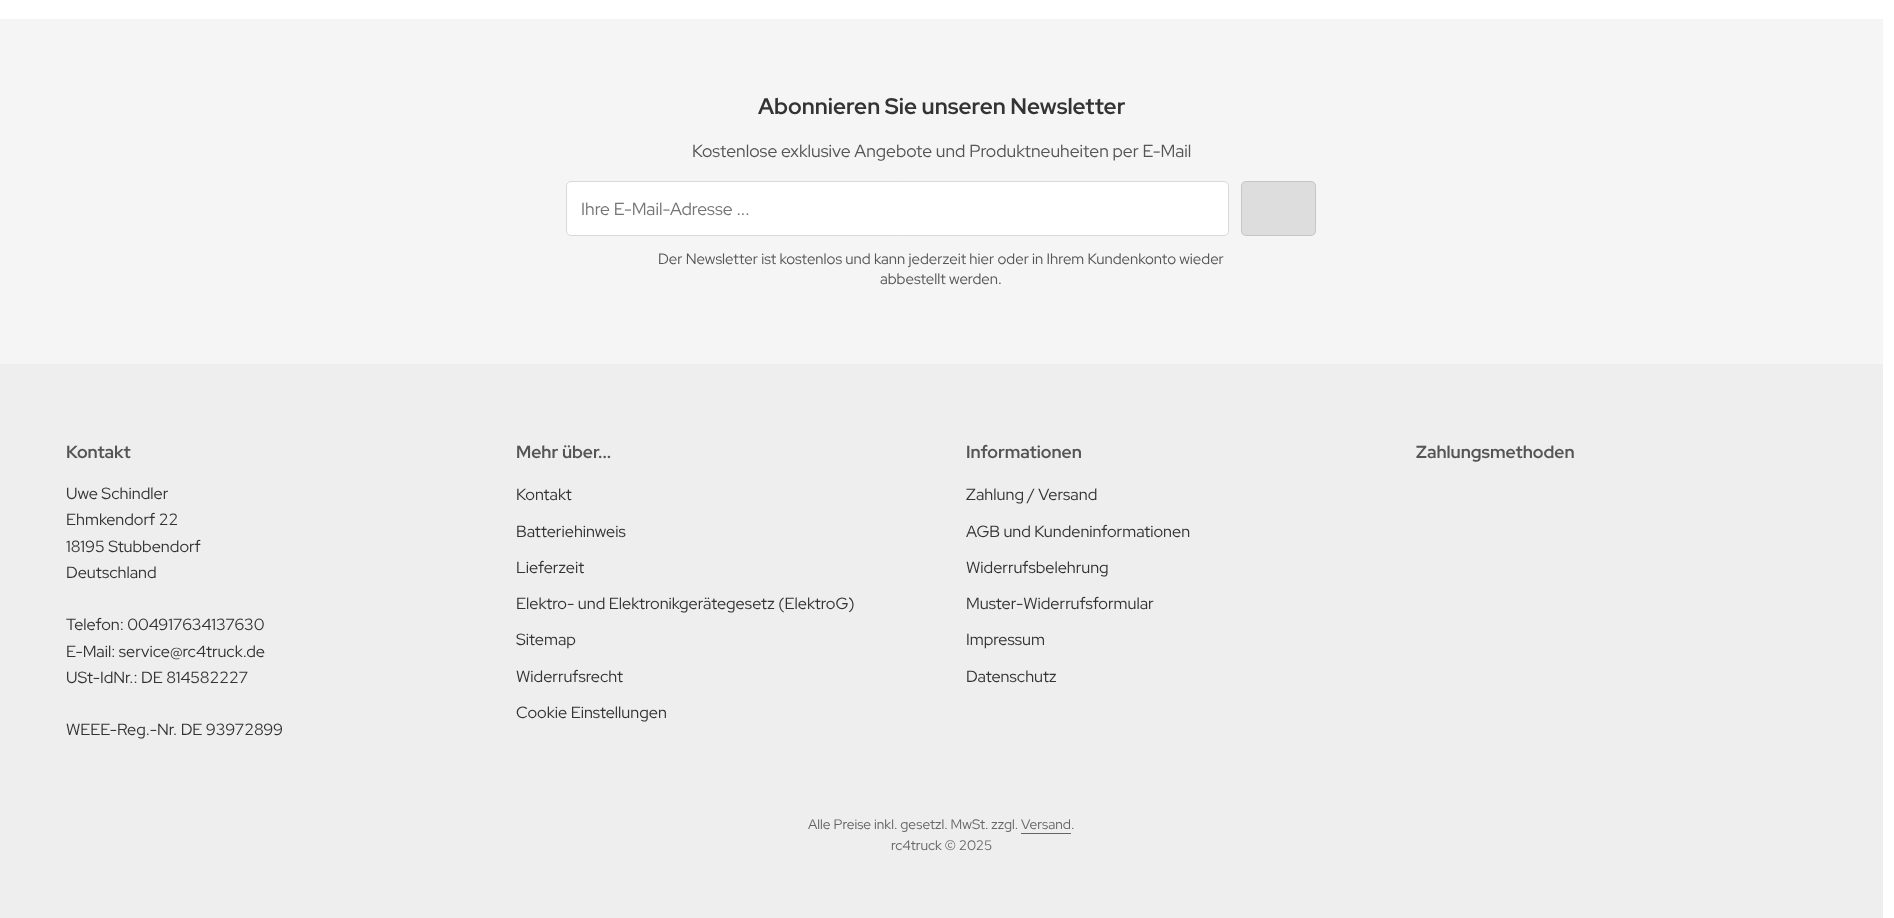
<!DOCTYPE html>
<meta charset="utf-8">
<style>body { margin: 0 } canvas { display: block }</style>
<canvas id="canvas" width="1894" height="918"></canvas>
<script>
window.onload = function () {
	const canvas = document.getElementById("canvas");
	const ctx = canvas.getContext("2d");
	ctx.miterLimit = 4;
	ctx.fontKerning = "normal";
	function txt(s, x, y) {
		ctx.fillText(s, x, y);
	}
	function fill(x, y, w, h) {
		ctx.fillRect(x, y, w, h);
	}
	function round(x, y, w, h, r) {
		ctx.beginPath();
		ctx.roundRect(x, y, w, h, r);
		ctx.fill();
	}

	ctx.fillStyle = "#FFFFFF";
	fill(0, 0, 1894, 918);
	ctx.fillStyle = "#F5F5F5";
	fill(0, 19, 1883, 345);
	ctx.fillStyle = "#FFFFFF";
	ctx.beginPath();
	ctx.roundRect(566.5, 181.5, 662, 54, 4.5);
	ctx.fill();
	ctx.strokeStyle = "#D9D9D9";
	ctx.stroke();
	ctx.fillStyle = "#DDDDDD";
	round(1241, 181, 75, 55, 5);
	ctx.beginPath();
	ctx.roundRect(1241.5, 181.5, 74, 54, 4.5);
	ctx.strokeStyle = "rgba(0, 0, 0, 0.1)";
	ctx.stroke();
	ctx.fillStyle = "#EEEEEE";
	fill(0, 364, 1883, 554);
	ctx.fillStyle = "#666666";
	fill(1021, 833, 50, 1);
	ctx.font = "bold 22.5px Red Hat Display";
	ctx.fillStyle = "#333333";
	txt("Abonnieren Sie unseren Newsletter", 758, 114);
	ctx.font = "17.5px Red Hat Display";
	ctx.fillStyle = "#555555";
	txt("Kostenlose exklusive Angebote und Produktneuheiten per E-Mail", 692, 157);
	ctx.fillStyle = "#757575";
	txt("Ihre E-Mail-Adresse ...", 581, 215);
	ctx.font = "15px Red Hat Display";
	ctx.fillStyle = "#555555";
	txt("Der Newsletter ist kostenlos und kann jederzeit hier oder in Ihrem Kundenkonto wieder", 658, 264);
	txt("abbestellt werden.", 880, 284);
	ctx.font = "bold 17.5px Red Hat Display";
	txt("Kontakt", 66, 458);
	ctx.font = "16.25px Red Hat Display";
	ctx.fillStyle = "#333333";
	txt("Uwe Schindler", 66, 499);
	txt("Ehmkendorf 22", 66, 525);
	txt("18195 Stubbendorf", 66, 552);
	txt("Deutschland", 66, 578);
	txt("Telefon: 004917634137630", 66, 630);
	txt("E-Mail: service@rc4truck.de", 66, 657);
	txt("USt-IdNr.: DE 814582227", 66, 683);
	txt("WEEE-Reg.-Nr. DE 93972899", 66, 735);
	ctx.font = "bold 17.5px Red Hat Display";
	ctx.fillStyle = "#555555";
	txt("Mehr über...", 516, 458);
	ctx.font = "16.25px Red Hat Display";
	ctx.fillStyle = "#333333";
	txt("Kontakt", 516, 500);
	txt("Batteriehinweis", 516, 537);
	txt("Lieferzeit", 516, 573);
	txt("Elektro- und Elektronikgerätegesetz (ElektroG)", 516, 609);
	txt("Sitemap", 516, 645);
	txt("Widerrufsrecht", 516, 682);
	txt("Cookie Einstellungen", 516, 718);
	ctx.font = "bold 17.5px Red Hat Display";
	ctx.fillStyle = "#555555";
	txt("Informationen", 966, 458);
	ctx.font = "16.25px Red Hat Display";
	ctx.fillStyle = "#333333";
	txt("Zahlung / Versand", 966, 500);
	txt("AGB und Kundeninformationen", 966, 537);
	txt("Widerrufsbelehrung", 966, 573);
	txt("Muster-Widerrufsformular", 966, 609);
	txt("Impressum", 966, 645);
	txt("Datenschutz", 966, 682);
	ctx.font = "bold 17.5px Red Hat Display";
	ctx.fillStyle = "#555555";
	txt("Zahlungsmethoden", 1416, 458);
	ctx.font = "13.75px Red Hat Display";
	ctx.fillStyle = "#666666";
	txt("Alle Preise inkl. gesetzl. MwSt. zzgl. Versand.", 808, 829);
	txt("rc4truck © 2025", 891, 850);
};
</script>
